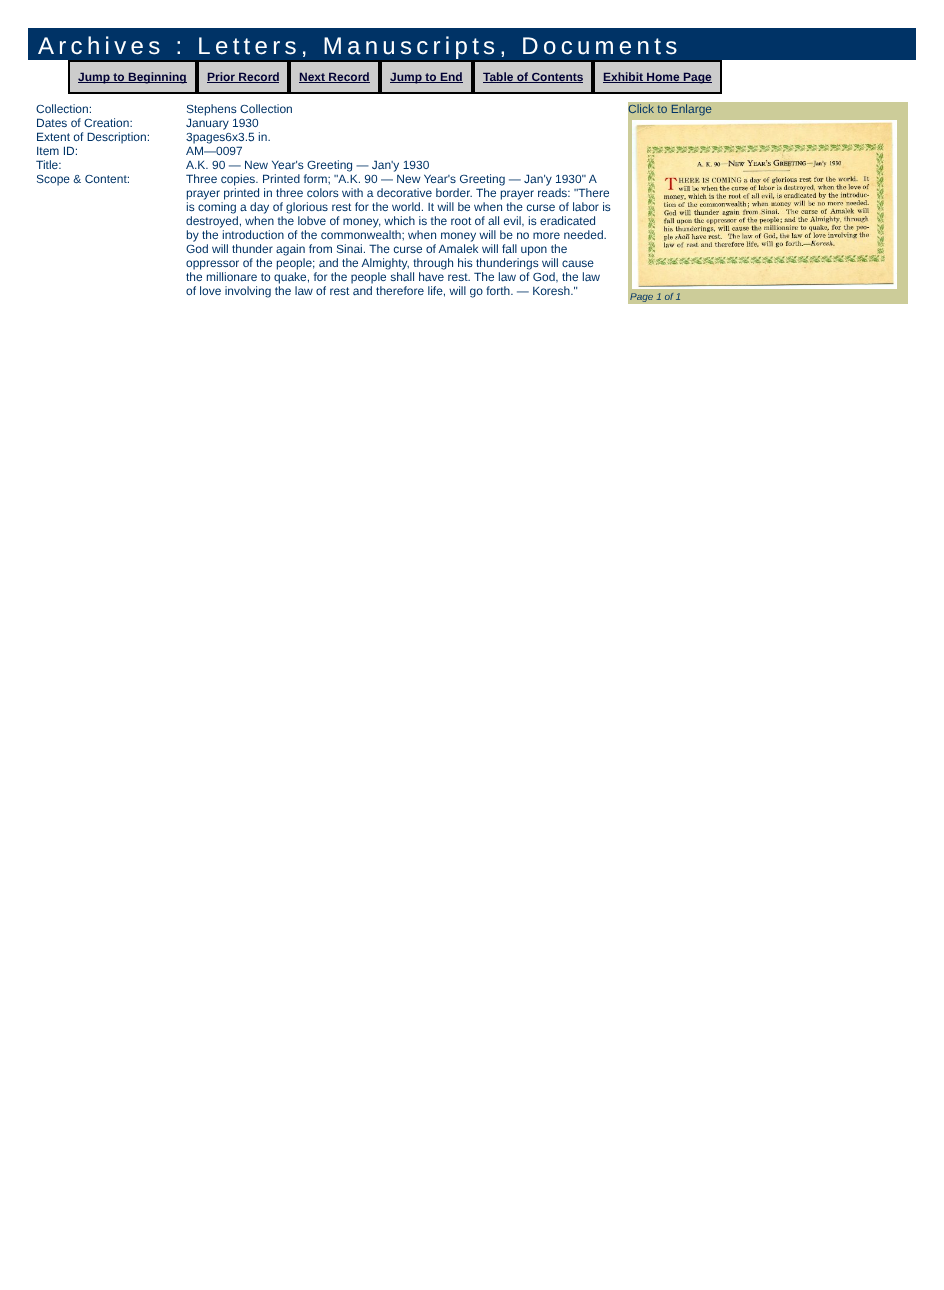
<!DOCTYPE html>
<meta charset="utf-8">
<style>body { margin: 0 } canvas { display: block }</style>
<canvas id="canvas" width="944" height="1290"></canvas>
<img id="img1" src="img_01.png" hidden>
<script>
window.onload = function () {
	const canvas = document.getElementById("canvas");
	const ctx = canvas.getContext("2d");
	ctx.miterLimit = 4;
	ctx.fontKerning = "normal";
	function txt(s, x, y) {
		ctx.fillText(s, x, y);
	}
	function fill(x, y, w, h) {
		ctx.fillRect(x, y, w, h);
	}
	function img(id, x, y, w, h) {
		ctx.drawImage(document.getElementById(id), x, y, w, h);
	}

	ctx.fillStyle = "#FFFFFF";
	fill(0, 0, 944, 1290);
	ctx.fillStyle = "#003366";
	fill(28, 28, 888, 32);
	ctx.fillStyle = "#CCCCCC";
	ctx.beginPath();
	ctx.rect(69, 61, 127, 32);
	ctx.fill();
	ctx.strokeStyle = "#000000";
	ctx.lineWidth = 2;
	ctx.stroke();
	ctx.fillStyle = "#000033";
	fill(78, 82, 109, 1);
	ctx.fillStyle = "#CCCCCC";
	ctx.beginPath();
	ctx.rect(198, 61, 90, 32);
	ctx.fill();
	ctx.stroke();
	ctx.fillStyle = "#000033";
	fill(207, 82, 72, 1);
	ctx.fillStyle = "#CCCCCC";
	ctx.beginPath();
	ctx.rect(290, 61, 89, 32);
	ctx.fill();
	ctx.stroke();
	ctx.fillStyle = "#000033";
	fill(299, 82, 71, 1);
	ctx.fillStyle = "#CCCCCC";
	ctx.beginPath();
	ctx.rect(381, 61, 91, 32);
	ctx.fill();
	ctx.stroke();
	ctx.fillStyle = "#000033";
	fill(390, 82, 73, 1);
	ctx.fillStyle = "#CCCCCC";
	ctx.beginPath();
	ctx.rect(474, 61, 118, 32);
	ctx.fill();
	ctx.stroke();
	ctx.fillStyle = "#000033";
	fill(483, 82, 100, 1);
	ctx.fillStyle = "#CCCCCC";
	ctx.beginPath();
	ctx.rect(594, 61, 127, 32);
	ctx.fill();
	ctx.stroke();
	ctx.fillStyle = "#000033";
	fill(603, 82, 109, 1);
	ctx.fillStyle = "#CCCC99";
	fill(628, 102, 280, 202);
	img("img1", 632, 120, 265, 169);
	ctx.letterSpacing = "4.3px";
	ctx.font = "24px Liberation Sans";
	ctx.fillStyle = "#FFFFFF";
	txt("Archives : Letters, Manuscripts, Documents", 38, 54);
	ctx.letterSpacing = "0px";
	ctx.font = "bold 12px Liberation Sans";
	ctx.fillStyle = "#000033";
	txt("Jump to Beginning", 78, 81);
	txt("Prior Record", 207, 81);
	txt("Next Record", 299, 81);
	txt("Jump to End", 390, 81);
	txt("Table of Contents", 483, 81);
	txt("Exhibit Home Page", 603, 81);
	ctx.font = "12px Liberation Sans";
	ctx.fillStyle = "#003366";
	txt("Collection:", 36, 113);
	txt("Stephens Collection", 186, 113);
	txt("Dates of Creation:", 36, 127);
	txt("January 1930", 186, 127);
	txt("Extent of Description:", 36, 141);
	txt("3pages6x3.5 in.", 186, 141);
	txt("Item ID:", 36, 155);
	txt("AM—0097", 186, 155);
	txt("Title:", 36, 169);
	txt("A.K. 90 — New Year's Greeting — Jan'y 1930", 186, 169);
	txt("Scope & Content:", 36, 183);
	txt("Three copies. Printed form; \"A.K. 90 — New Year's Greeting — Jan'y 1930\" A", 186, 183);
	txt("prayer printed in three colors with a decorative border. The prayer reads: \"There", 186, 197);
	txt("is coming a day of glorious rest for the world. It will be when the curse of labor is", 186, 211);
	txt("destroyed, when the lobve of money, which is the root of all evil, is eradicated", 186, 225);
	txt("by the introduction of the commonwealth; when money will be no more needed.", 186, 239);
	txt("God will thunder again from Sinai. The curse of Amalek will fall upon the", 186, 253);
	txt("oppressor of the people; and the Almighty, through his thunderings will cause", 186, 267);
	txt("the millionare to quake, for the people shall have rest. The law of God, the law", 186, 281);
	txt("of love involving the law of rest and therefore life, will go forth. — Koresh.\"", 186, 295);
	txt("Click to Enlarge", 628, 113);
	ctx.font = "italic 10px Liberation Sans";
	txt("Page 1 of 1", 630, 300);
};
</script>
